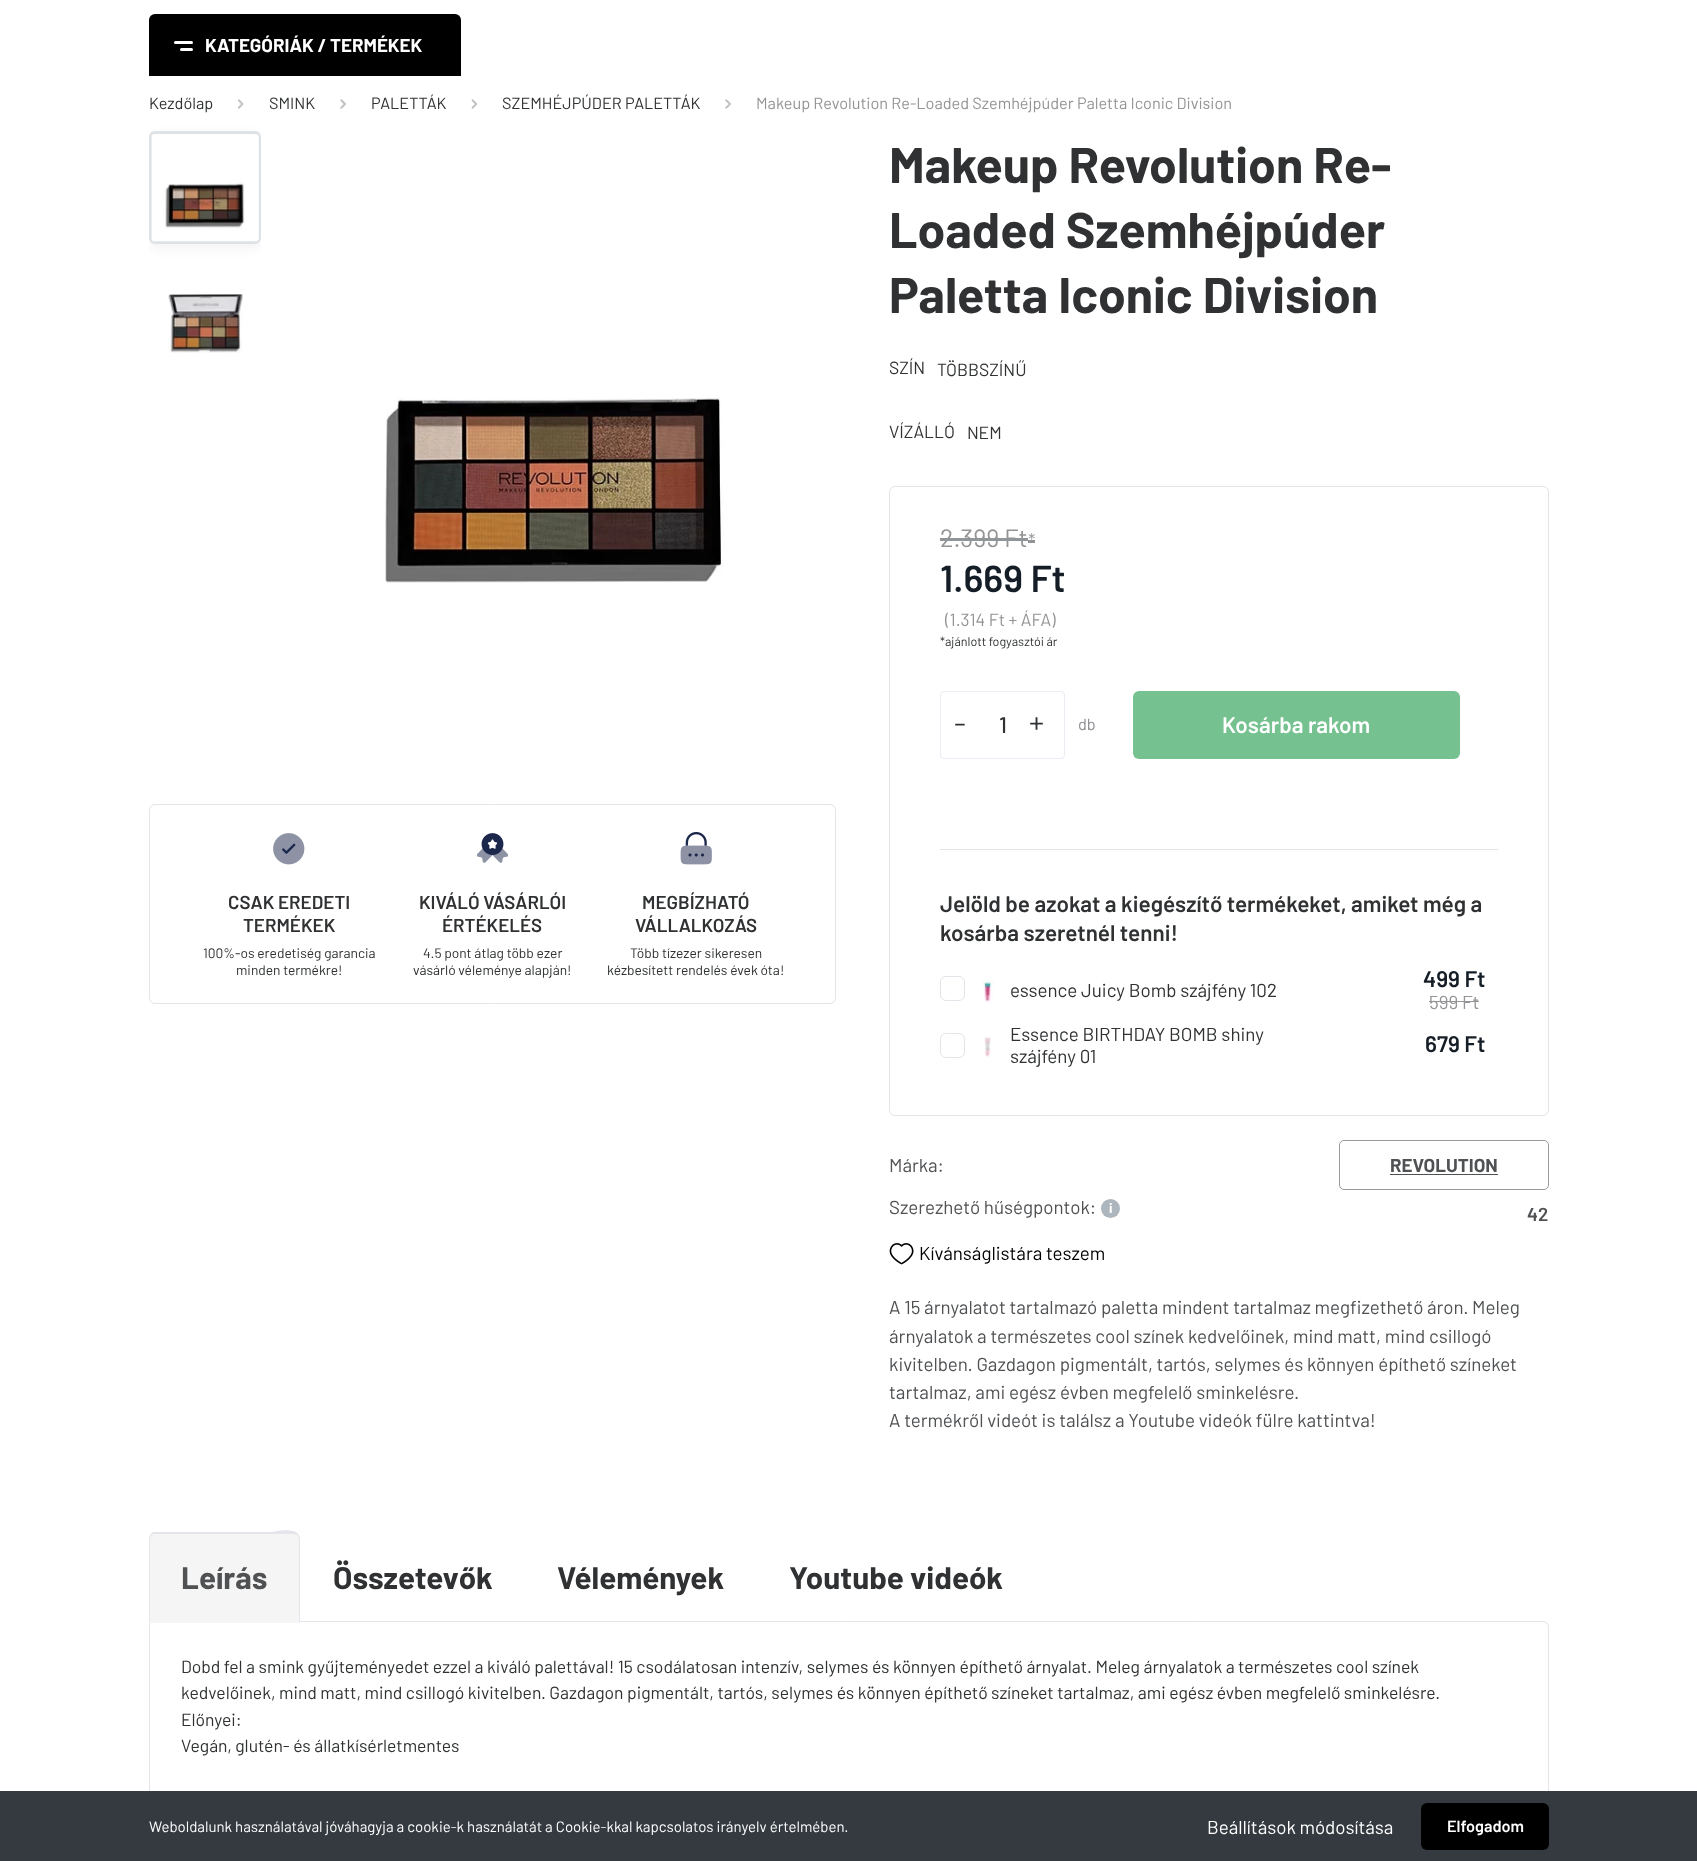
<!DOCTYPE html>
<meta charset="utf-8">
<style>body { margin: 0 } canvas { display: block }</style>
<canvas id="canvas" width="1697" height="1861"></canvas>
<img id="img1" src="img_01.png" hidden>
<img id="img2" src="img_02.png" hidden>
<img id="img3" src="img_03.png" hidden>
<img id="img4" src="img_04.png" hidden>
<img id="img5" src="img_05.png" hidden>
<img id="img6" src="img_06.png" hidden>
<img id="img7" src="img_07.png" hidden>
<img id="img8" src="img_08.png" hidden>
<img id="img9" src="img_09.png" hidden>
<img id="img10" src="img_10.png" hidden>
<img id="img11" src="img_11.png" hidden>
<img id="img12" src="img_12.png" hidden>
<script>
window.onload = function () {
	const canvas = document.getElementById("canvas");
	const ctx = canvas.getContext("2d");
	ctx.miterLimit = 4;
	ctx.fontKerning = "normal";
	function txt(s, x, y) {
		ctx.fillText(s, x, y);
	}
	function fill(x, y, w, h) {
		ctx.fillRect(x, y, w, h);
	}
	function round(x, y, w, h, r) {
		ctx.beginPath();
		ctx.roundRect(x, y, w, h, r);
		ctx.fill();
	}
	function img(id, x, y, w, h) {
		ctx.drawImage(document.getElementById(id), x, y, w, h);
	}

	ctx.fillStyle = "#FFFFFF";
	fill(0, 0, 1697, 1861);
	ctx.fillStyle = "#000000";
	ctx.beginPath();
	ctx.roundRect(149, 14, 312, 62, [6, 6, 0, 0]);
	ctx.fill();
	ctx.fillStyle = "#FFFFFF";
	round(174, 41, 19, 3, 1.5);
	round(180, 48, 13, 3, 1.5);
	img("img1", 238, 99, 6, 10);
	img("img2", 340, 99, 6, 10);
	img("img3", 471, 99, 6, 10);
	img("img2", 725, 99, 6, 10);
	ctx.save();
	ctx.beginPath();
	ctx.rect(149, 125, 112, 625);
	ctx.clip();
	ctx.fillStyle = "rgba(0, 0, 0, 0.05)";
	ctx.filter = "blur(6px)";
	ctx.beginPath();
	ctx.roundRect(149, 135, 112, 113, 6);
	ctx.fill();
	ctx.filter = "none";
	ctx.restore();
	ctx.beginPath();
	ctx.roundRect(150.5, 132.5, 109, 110, 4.5);
	ctx.strokeStyle = "#DEE2E6";
	ctx.lineWidth = 3;
	ctx.stroke();
	img("img4", 151, 134, 108, 108);
	img("img5", 168, 294, 75, 59);
	img("img6", 385, 398, 339, 185);
	ctx.beginPath();
	ctx.roundRect(149.5, 804.5, 686, 199, 5.5);
	ctx.strokeStyle = "#E4E4EA";
	ctx.lineWidth = 1;
	ctx.stroke();
	img("img7", 273, 833, 32, 32);
	img("img8", 476, 833, 33, 30);
	img("img9", 680, 832, 32, 33);
	ctx.beginPath();
	ctx.roundRect(889.5, 486.5, 659, 629, 5.5);
	ctx.stroke();
	ctx.fillStyle = "#929597";
	fill(1028, 540, 7, 3);
	ctx.beginPath();
	ctx.roundRect(940.5, 691.5, 124, 67, 3.5);
	ctx.strokeStyle = "#ECECF4";
	ctx.stroke();
	ctx.fillStyle = "#75C290";
	round(1133, 691, 327, 68, 6);
	ctx.fillStyle = "#E4E4EA";
	fill(940, 849, 558, 1);
	ctx.beginPath();
	ctx.roundRect(940.5, 976.5, 24, 24, 5.5);
	ctx.strokeStyle = "#E4E4EA";
	ctx.stroke();
	img("img10", 983, 980, 12, 22);
	ctx.beginPath();
	ctx.roundRect(940.5, 1033.5, 24, 24, 5.5);
	ctx.stroke();
	img("img11", 984, 1037, 7, 21);
	ctx.beginPath();
	ctx.roundRect(1339.5, 1140.5, 209, 49, 4.5);
	ctx.strokeStyle = "#999999";
	ctx.stroke();
	ctx.fillStyle = "#4F5153";
	fill(1390, 1174, 108, 1);
	ctx.fillStyle = "#ADB5BD";
	ctx.beginPath();
	ctx.arc(1110.5, 1208.5, 9.5, 0, Math.PI * 2);
	ctx.fill();
	img("img12", 889, 1243, 25, 22);
	ctx.beginPath();
	ctx.roundRect(149.5, 1621.5, 1399, 189, [0, 5.5, 5.5, 5.5]);
	ctx.strokeStyle = "#E4E4EA";
	ctx.stroke();
	ctx.fillStyle = "#F5F5F5";
	ctx.beginPath();
	ctx.roundRect(149, 1533, 151, 90, [6, 6, 0, 0]);
	ctx.fill();
	ctx.fillStyle = "#E4E4EA";
	ctx.beginPath();
	ctx.moveTo(155, 1534);
	ctx.bezierCurveTo(154, 1534, 152, 1534, 152, 1535);
	ctx.lineTo(151, 1534);
	ctx.lineTo(153, 1532);
	ctx.lineTo(272, 1532);
	ctx.bezierCurveTo(273, 1532, 293, 1527, 298, 1534);
	ctx.lineTo(297, 1535);
	ctx.lineTo(294, 1534);
	ctx.closePath();
	ctx.fill();
	ctx.beginPath();
	ctx.moveTo(300, 1622);
	ctx.lineTo(300, 1539);
	ctx.bezierCurveTo(300, 1537, 299, 1535, 298, 1534);
	ctx.lineTo(297, 1535);
	ctx.lineTo(299, 1538);
	ctx.lineTo(299, 1621);
	ctx.lineTo(298, 1621);
	ctx.closePath();
	ctx.fill();
	ctx.fillStyle = "#F5F5F5";
	ctx.beginPath();
	ctx.moveTo(300, 1622);
	ctx.lineTo(149, 1622);
	ctx.lineTo(150, 1621);
	ctx.lineTo(298, 1621);
	ctx.closePath();
	ctx.fill();
	ctx.fillStyle = "#E4E4EA";
	ctx.beginPath();
	ctx.moveTo(149, 1622);
	ctx.lineTo(149, 1539);
	ctx.bezierCurveTo(149, 1537, 150, 1536, 151, 1534);
	ctx.lineTo(152, 1535);
	ctx.lineTo(150, 1538);
	ctx.lineTo(150, 1621);
	ctx.closePath();
	ctx.fill();
	ctx.fillStyle = "#343A40";
	fill(0, 1791, 1697, 70);
	ctx.fillStyle = "#000000";
	round(1421, 1803, 128, 47, 6);
	ctx.font = "bold 18.75px Barlow";
	ctx.fillStyle = "#FFFFFF";
	txt("KATEGÓRIÁK / TERMÉKEK", 205, 52);
	ctx.font = "16.25px Barlow";
	ctx.fillStyle = "#2F3132";
	txt("Kezdőlap", 149, 109);
	txt("SMINK", 269, 109);
	txt("PALETTÁK", 371, 109);
	txt("SZEMHÉJPÚDER PALETTÁK", 502, 109);
	ctx.fillStyle = "#949496";
	txt("Makeup Revolution Re-Loaded Szemhéjpúder Paletta Iconic Division", 756, 109);
	ctx.font = "600 18.75px Barlow";
	ctx.fillStyle = "#2F3132";
	txt("CSAK EREDETI", 228, 909);
	txt("TERMÉKEK", 243, 932);
	ctx.font = "13.75px Barlow";
	txt("100%-os eredetiség garancia", 203, 958);
	txt("minden termékre!", 236, 975);
	ctx.font = "600 18.75px Barlow";
	txt("KIVÁLÓ VÁSÁRLÓI", 419, 909);
	txt("ÉRTÉKELÉS", 442, 932);
	ctx.font = "13.75px Barlow";
	txt("4.5 pont átlag több ezer", 423, 958);
	txt("vásárló véleménye alapján!", 413, 975);
	ctx.font = "600 18.75px Barlow";
	txt("MEGBÍZHATÓ", 642, 909);
	txt("VÁLLALKOZÁS", 635, 932);
	ctx.font = "13.75px Barlow";
	txt("Több tízezer sikeresen", 630, 958);
	txt("kézbesített rendelés évek óta!", 607, 975);
	ctx.font = "bold 50px Barlow";
	txt("Makeup Revolution Re-", 889, 183);
	txt("Loaded Szemhéjpúder", 889, 248);
	txt("Paletta Iconic Division", 889, 313);
	ctx.font = "17.5px Barlow";
	txt("SZÍN", 889, 374);
	txt("TÖBBSZÍNŰ", 937, 376);
	txt("VÍZÁLLÓ", 889, 438);
	txt("NEM", 967, 439);
	ctx.font = "25px Barlow";
	ctx.fillStyle = "#949496";
	txt("2.399 Ft", 940, 547);
	ctx.fillStyle = "#929597";
	fill(940, 538, 88, 3);
	ctx.font = "18.75px Barlow";
	ctx.fillStyle = "#949496";
	txt("*", 1028, 547);
	ctx.font = "600 37.5px Barlow";
	ctx.fillStyle = "#151E26";
	txt("1.669 Ft", 940, 592);
	ctx.font = "17.5px Barlow";
	ctx.fillStyle = "#949496";
	txt("(1.314 Ft + ÁFA)", 945, 626);
	ctx.font = "12.5px Barlow";
	ctx.fillStyle = "#2F3132";
	txt("*ajánlott fogyasztói ár", 940, 646);
	ctx.font = "30px Barlow";
	txt("-", 954, 734);
	ctx.font = "500 22.5px Barlow";
	txt("1", 999, 733);
	ctx.font = "30px Barlow";
	txt("+", 1029, 733);
	ctx.font = "16.25px Barlow";
	ctx.fillStyle = "#8D8D93";
	txt("db", 1078, 730);
	ctx.font = "600 22.5px Barlow";
	ctx.fillStyle = "#FFFFFF";
	txt("Kosárba rakom", 1222, 733);
	ctx.fillStyle = "#2F3132";
	txt("Jelöld be azokat a kiegészítő termékeket, amiket még a", 940, 912);
	txt("kosárba szeretnél tenni!", 940, 941);
	ctx.font = "18.75px Barlow";
	txt("essence Juicy Bomb szájfény 102", 1010, 997);
	ctx.font = "600 22.5px Barlow";
	ctx.fillStyle = "#151E26";
	txt("499 Ft", 1423, 987);
	ctx.font = "18.75px Barlow";
	ctx.fillStyle = "#949496";
	txt("599 Ft", 1429, 1009);
	ctx.fillStyle = "#929597";
	fill(1429, 1001, 50, 1);
	ctx.fillStyle = "#2F3132";
	txt("Essence BIRTHDAY BOMB shiny", 1010, 1041);
	txt("szájfény 01", 1010, 1063);
	ctx.font = "600 22.5px Barlow";
	ctx.fillStyle = "#151E26";
	txt("679 Ft", 1425, 1052);
	ctx.font = "18.75px Barlow";
	ctx.fillStyle = "#4F5153";
	txt("Márka:", 889, 1172);
	ctx.font = "bold 18.75px Barlow";
	txt("REVOLUTION", 1390, 1172);
	ctx.font = "18.75px Barlow";
	txt("Szerezhető hűségpontok:", 889, 1214);
	ctx.font = "bold 13.75px Barlow";
	ctx.fillStyle = "#FFFFFF";
	txt("i", 1109, 1213);
	ctx.font = "600 18.75px Barlow";
	ctx.fillStyle = "#4F5153";
	txt("42", 1527, 1221);
	ctx.font = "18.75px Barlow";
	ctx.fillStyle = "#000000";
	txt("Kívánságlistára teszem", 919, 1260);
	ctx.fillStyle = "#4F5153";
	txt("A 15 árnyalatot tartalmazó paletta mindent tartalmaz megfizethető áron. Meleg", 889, 1314);
	txt("árnyalatok a természetes cool színek kedvelőinek, mind matt, mind csillogó", 889, 1343);
	txt("kivitelben. Gazdagon pigmentált, tartós, selymes és könnyen építhető színeket", 889, 1371);
	txt("tartalmaz, ami egész évben megfelelő sminkelésre.", 889, 1399);
	txt("A termékről videót is találsz a Youtube videók fülre kattintva!", 889, 1427);
	ctx.font = "bold 31.25px Barlow";
	txt("Leírás", 181, 1589);
	ctx.fillStyle = "#2F3132";
	txt("Összetevők", 333, 1589);
	txt("Vélemények", 557, 1589);
	txt("Youtube videók", 789, 1589);
	ctx.font = "17.5px Barlow";
	txt("Dobd fel a smink gyűjteményedet ezzel a kiváló palettával! 15 csodálatosan intenzív, selymes és könnyen építhető árnyalat. Meleg árnyalatok a természetes cool színek", 181, 1673);
	txt("kedvelőinek, mind matt, mind csillogó kivitelben. Gazdagon pigmentált, tartós, selymes és könnyen építhető színeket tartalmaz, ami egész évben megfelelő sminkelésre.", 181, 1699);
	txt("Előnyei:", 181, 1726);
	txt("Vegán, glutén- és állatkísérletmentes", 181, 1752);
	ctx.font = "15px Barlow";
	ctx.fillStyle = "#FFFFFF";
	txt("Weboldalunk használatával jóváhagyja a cookie-k használatát a Cookie-kkal kapcsolatos irányelv értelmében.", 149, 1832);
	ctx.font = "18.75px Barlow";
	txt("Beállítások módosítása", 1207, 1834);
	ctx.font = "600 16.25px Barlow";
	txt("Elfogadom", 1447, 1832);
};
</script>
